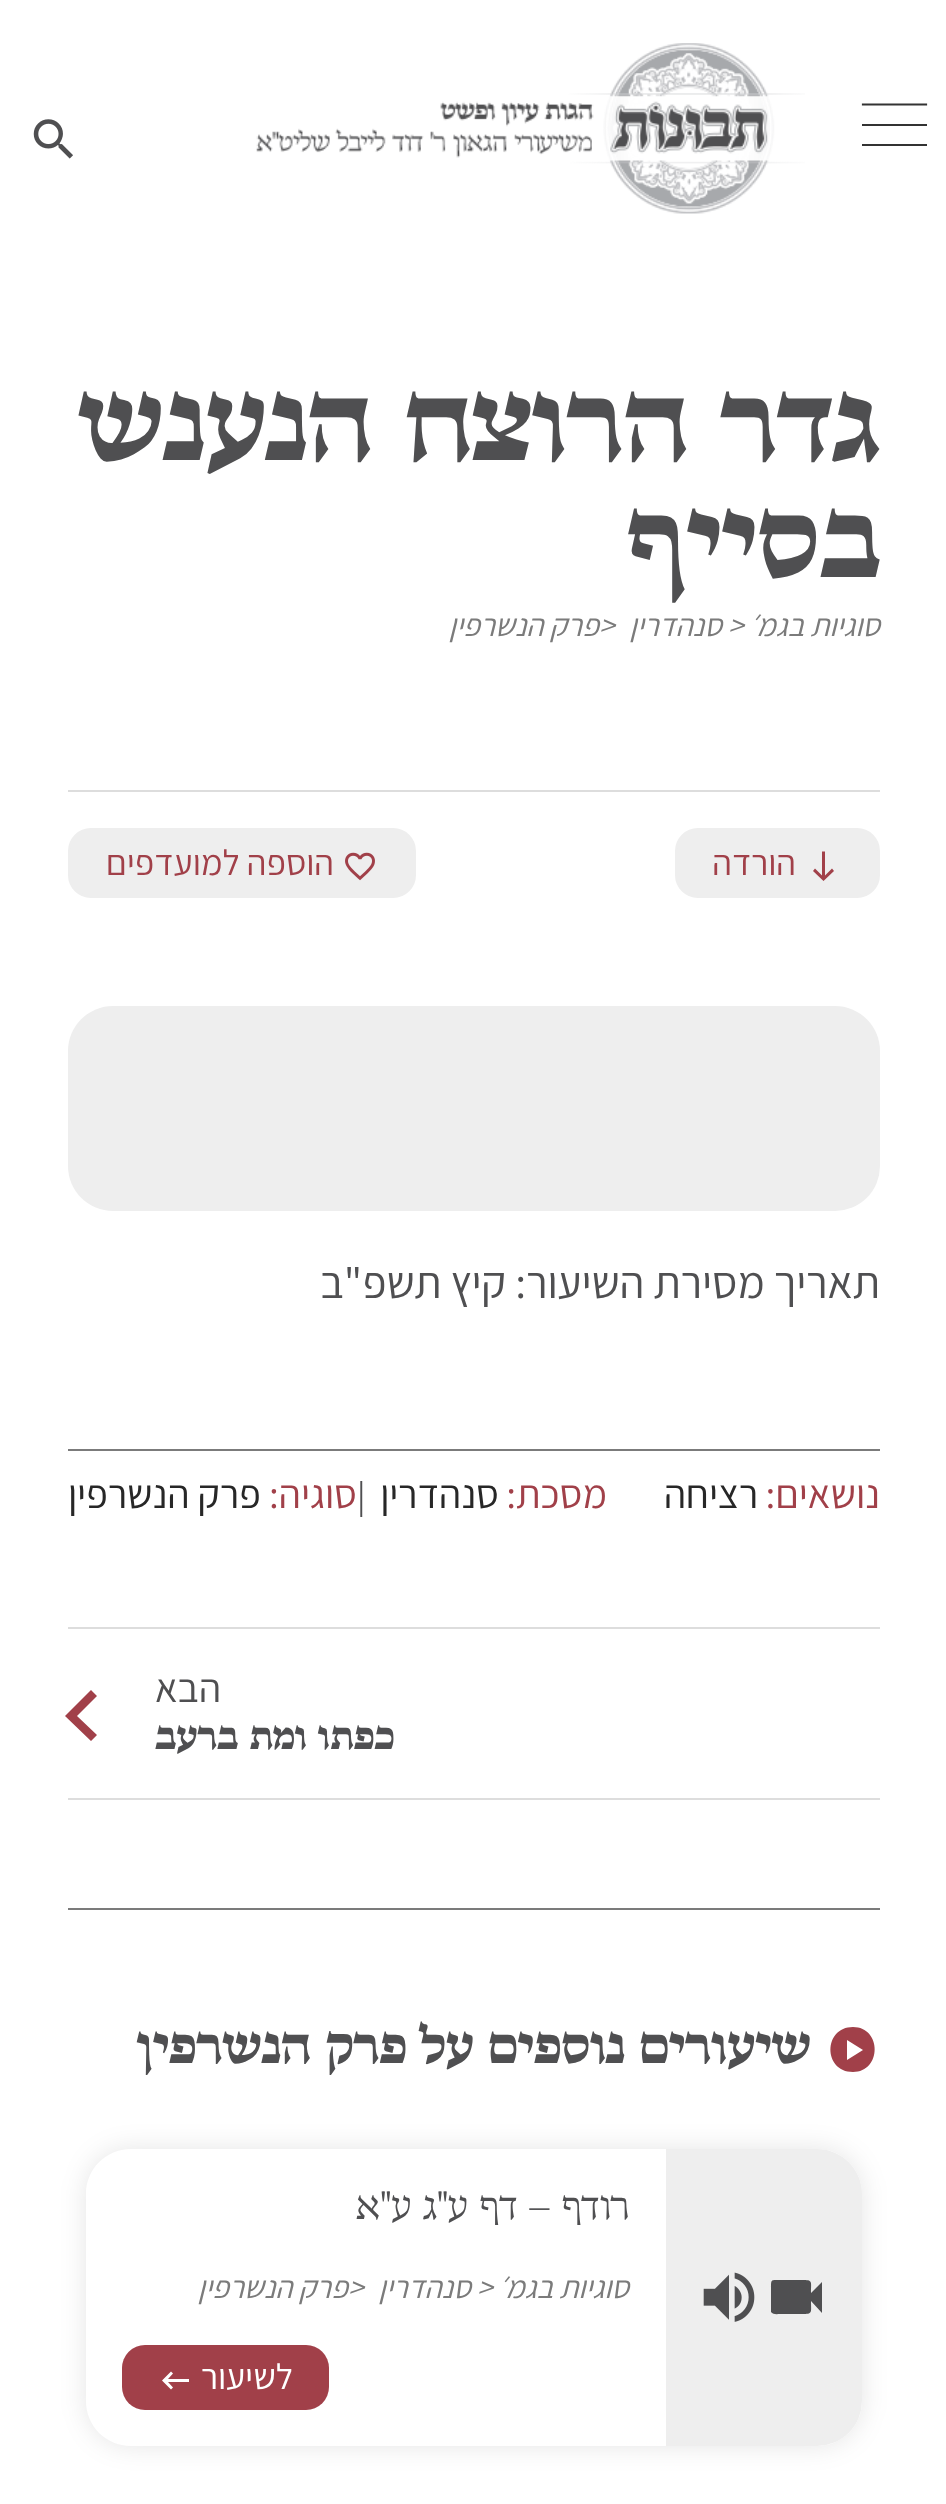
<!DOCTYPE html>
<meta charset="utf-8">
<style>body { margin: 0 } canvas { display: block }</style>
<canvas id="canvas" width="946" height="2504"></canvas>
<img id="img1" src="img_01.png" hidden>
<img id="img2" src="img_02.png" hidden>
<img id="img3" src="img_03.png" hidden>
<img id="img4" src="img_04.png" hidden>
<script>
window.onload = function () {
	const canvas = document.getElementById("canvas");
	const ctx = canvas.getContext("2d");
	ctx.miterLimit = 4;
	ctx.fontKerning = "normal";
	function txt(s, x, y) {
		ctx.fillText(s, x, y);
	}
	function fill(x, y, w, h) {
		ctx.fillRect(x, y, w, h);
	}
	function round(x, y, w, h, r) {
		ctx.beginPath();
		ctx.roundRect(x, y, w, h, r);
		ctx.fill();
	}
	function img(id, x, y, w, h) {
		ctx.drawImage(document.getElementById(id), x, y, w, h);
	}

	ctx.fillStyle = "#FFFFFF";
	fill(0, 0, 946, 2504);
	ctx.beginPath();
	ctx.moveTo(863, 104.5);
	ctx.lineTo(926, 104.5);
	ctx.strokeStyle = "#333333";
	ctx.lineWidth = 2.2;
	ctx.lineCap = "square";
	ctx.stroke();
	ctx.fillStyle = "#333333";
	fill(862, 124, 65, 2);
	fill(862, 144, 65, 2);
	img("img1", 256, 43, 549, 171);
	img("img2", 33, 119, 40, 40);
	ctx.fillStyle = "#DDDDDD";
	fill(68, 790, 812, 2);
	ctx.fillStyle = "#EEEEEE";
	ctx.beginPath();
	ctx.roundRect(676, 829, 203, 68, 22);
	ctx.fill();
	ctx.strokeStyle = "#EEEEEE";
	ctx.lineWidth = 2;
	ctx.stroke();
	ctx.fillStyle = "#A14049";
	ctx.beginPath();
	ctx.moveTo(834, 871);
	ctx.lineTo(832, 868.5);
	ctx.lineTo(825, 875.5);
	ctx.lineTo(825, 851.5);
	ctx.lineTo(822, 851.5);
	ctx.lineTo(822, 875.5);
	ctx.lineTo(815, 868.5);
	ctx.lineTo(813, 871);
	ctx.lineTo(823.5, 881);
	ctx.closePath();
	ctx.fill();
	ctx.fillStyle = "#EEEEEE";
	ctx.beginPath();
	ctx.roundRect(69, 829, 346, 68, 22);
	ctx.fill();
	ctx.stroke();
	img("img3", 345, 852, 30, 29);
	round(68, 1006, 812, 205, 45);
	ctx.fillStyle = "#7B7B7B";
	fill(68, 1449, 812, 2);
	ctx.fillStyle = "#DDDDDD";
	fill(68, 1627, 812, 2);
	fill(68, 1798, 812, 2);
	ctx.fillStyle = "#A14049";
	ctx.beginPath();
	ctx.moveTo(97, 1696);
	ctx.lineTo(77, 1716);
	ctx.lineTo(97, 1735);
	ctx.lineTo(91, 1741);
	ctx.lineTo(65, 1716);
	ctx.lineTo(91, 1690);
	ctx.closePath();
	ctx.fill();
	ctx.fillStyle = "#7B7B7B";
	fill(68, 1908, 812, 2);
	ctx.fillStyle = "#A14049";
	ctx.beginPath();
	ctx.moveTo(853, 2027);
	ctx.bezierCurveTo(823, 2027, 823, 2072, 853, 2072);
	ctx.bezierCurveTo(882, 2072, 882, 2027, 853, 2027);
	ctx.closePath();
	ctx.moveTo(847, 2060);
	ctx.lineTo(847, 2040);
	ctx.lineTo(863, 2050);
	ctx.closePath();
	ctx.fill();
	ctx.save();
	ctx.beginPath();
	ctx.moveTo(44, 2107);
	ctx.lineTo(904, 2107);
	ctx.lineTo(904, 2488);
	ctx.lineTo(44, 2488);
	ctx.closePath();
	ctx.moveTo(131, 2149);
	ctx.lineTo(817, 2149);
	ctx.bezierCurveTo(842, 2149, 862, 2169, 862, 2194);
	ctx.lineTo(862, 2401);
	ctx.bezierCurveTo(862, 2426, 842, 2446, 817, 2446);
	ctx.lineTo(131, 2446);
	ctx.bezierCurveTo(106, 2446, 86, 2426, 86, 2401);
	ctx.lineTo(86, 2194);
	ctx.bezierCurveTo(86, 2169, 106, 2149, 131, 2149);
	ctx.closePath();
	ctx.clip("evenodd");
	ctx.fillStyle = "rgba(0, 0, 0, 0.1)";
	ctx.filter = "blur(13.5px)";
	ctx.beginPath();
	ctx.roundRect(86, 2149, 776, 297, 45);
	ctx.fill();
	ctx.filter = "none";
	ctx.restore();
	ctx.fillStyle = "#EEEEEE";
	ctx.beginPath();
	ctx.roundRect(666, 2149, 196, 297, [0, 45, 45, 0]);
	ctx.fill();
	ctx.fillStyle = "#4F4F51";
	ctx.beginPath();
	ctx.moveTo(811, 2293);
	ctx.lineTo(822, 2282);
	ctx.lineTo(822, 2313);
	ctx.lineTo(811, 2301);
	ctx.bezierCurveTo(811, 2313, 813, 2314, 802, 2314);
	ctx.lineTo(780, 2314);
	ctx.bezierCurveTo(778, 2314, 773, 2315, 771, 2312);
	ctx.lineTo(771, 2288);
	ctx.bezierCurveTo(771, 2279, 771, 2280, 780, 2280);
	ctx.lineTo(802, 2280);
	ctx.bezierCurveTo(813, 2280, 811, 2281, 811, 2293);
	ctx.closePath();
	ctx.fill();
	img("img4", 703, 2272, 52, 50);
	ctx.fillStyle = "#A14049";
	round(122, 2345, 207, 65, 23);
	ctx.fillStyle = "#FFFFFF";
	ctx.beginPath();
	ctx.moveTo(189, 2379);
	ctx.lineTo(189, 2382);
	ctx.lineTo(168, 2382);
	ctx.lineTo(173, 2387.5);
	ctx.lineTo(171, 2389.5);
	ctx.lineTo(162, 2380.5);
	ctx.lineTo(171, 2371.5);
	ctx.lineTo(173, 2373.5);
	ctx.lineTo(168, 2379);
	ctx.closePath();
	ctx.fill();
	ctx.direction = "rtl";
	ctx.font = "bold 117px Bona Nova";
	ctx.fillStyle = "#4F4F51";
	txt("גדר הרוצח הנענש", 880, 460);
	txt("בסייף", 880, 577);
	ctx.font = "italic 31.5px Assistant";
	ctx.fillStyle = "#7B7B7B";
	txt("סוגיות בגמ׳", 880, 636);
	ctx.direction = "ltr";
	txt(">", 728, 636);
	ctx.direction = "rtl";
	txt("סנהדרין", 722, 636);
	ctx.direction = "ltr";
	txt(">", 599, 636);
	ctx.direction = "rtl";
	txt("פרק הנשרפין", 599, 636);
	ctx.font = "36px Assistant";
	ctx.fillStyle = "#A14049";
	txt("הורדה", 796, 875);
	txt("הוספה למועדפים", 334, 875);
	ctx.font = "45px Assistant";
	ctx.fillStyle = "#4F4F51";
	txt("תאריך מסירת השיעור: קיץ תשפ\"ב", 880, 1298);
	ctx.font = "40.5px Assistant";
	ctx.fillStyle = "#A14049";
	txt("נושאים:", 880, 1508);
	ctx.fillStyle = "#272727";
	txt("רציחה", 758, 1508);
	ctx.fillStyle = "#A14049";
	txt("מסכת:", 607, 1508);
	ctx.fillStyle = "#272727";
	txt("סנהדרין", 499, 1508);
	ctx.direction = "ltr";
	ctx.font = "36px Assistant";
	ctx.fillStyle = "#4F4F51";
	txt("|", 357, 1508);
	ctx.direction = "rtl";
	ctx.font = "40.5px Assistant";
	ctx.fillStyle = "#A14049";
	txt("סוגיה:", 357, 1508);
	ctx.fillStyle = "#272727";
	txt("פרק הנשרפין", 261, 1508);
	ctx.fillStyle = "#4F4F51";
	txt("הבא", 221, 1702);
	ctx.font = "bold 40.5px Bona Nova";
	txt("כפתו ומת ברעב", 394, 1749);
	ctx.font = "bold 54px Bona Nova";
	txt("שיעורים נוספים על פרק הנשרפין", 811, 2063);
	ctx.save();
	ctx.beginPath();
	ctx.rect(122, 2185, 508, 40);
	ctx.clip();
	ctx.font = "40.5px Bona Nova";
	txt("רודף – דף ע\"ג ע\"א", 629, 2219);
	ctx.restore();
	ctx.font = "italic 31.5px Assistant";
	ctx.fillStyle = "#7B7B7B";
	txt("סוגיות בגמ׳", 629, 2298);
	ctx.direction = "ltr";
	txt(">", 477, 2298);
	ctx.direction = "rtl";
	txt("סנהדרין", 471, 2298);
	ctx.direction = "ltr";
	txt(">", 348, 2298);
	ctx.direction = "rtl";
	txt("פרק הנשרפין", 348, 2298);
	ctx.font = "36px Assistant";
	ctx.fillStyle = "#FFFFFF";
	txt("לשיעור", 293, 2389);
};
</script>
